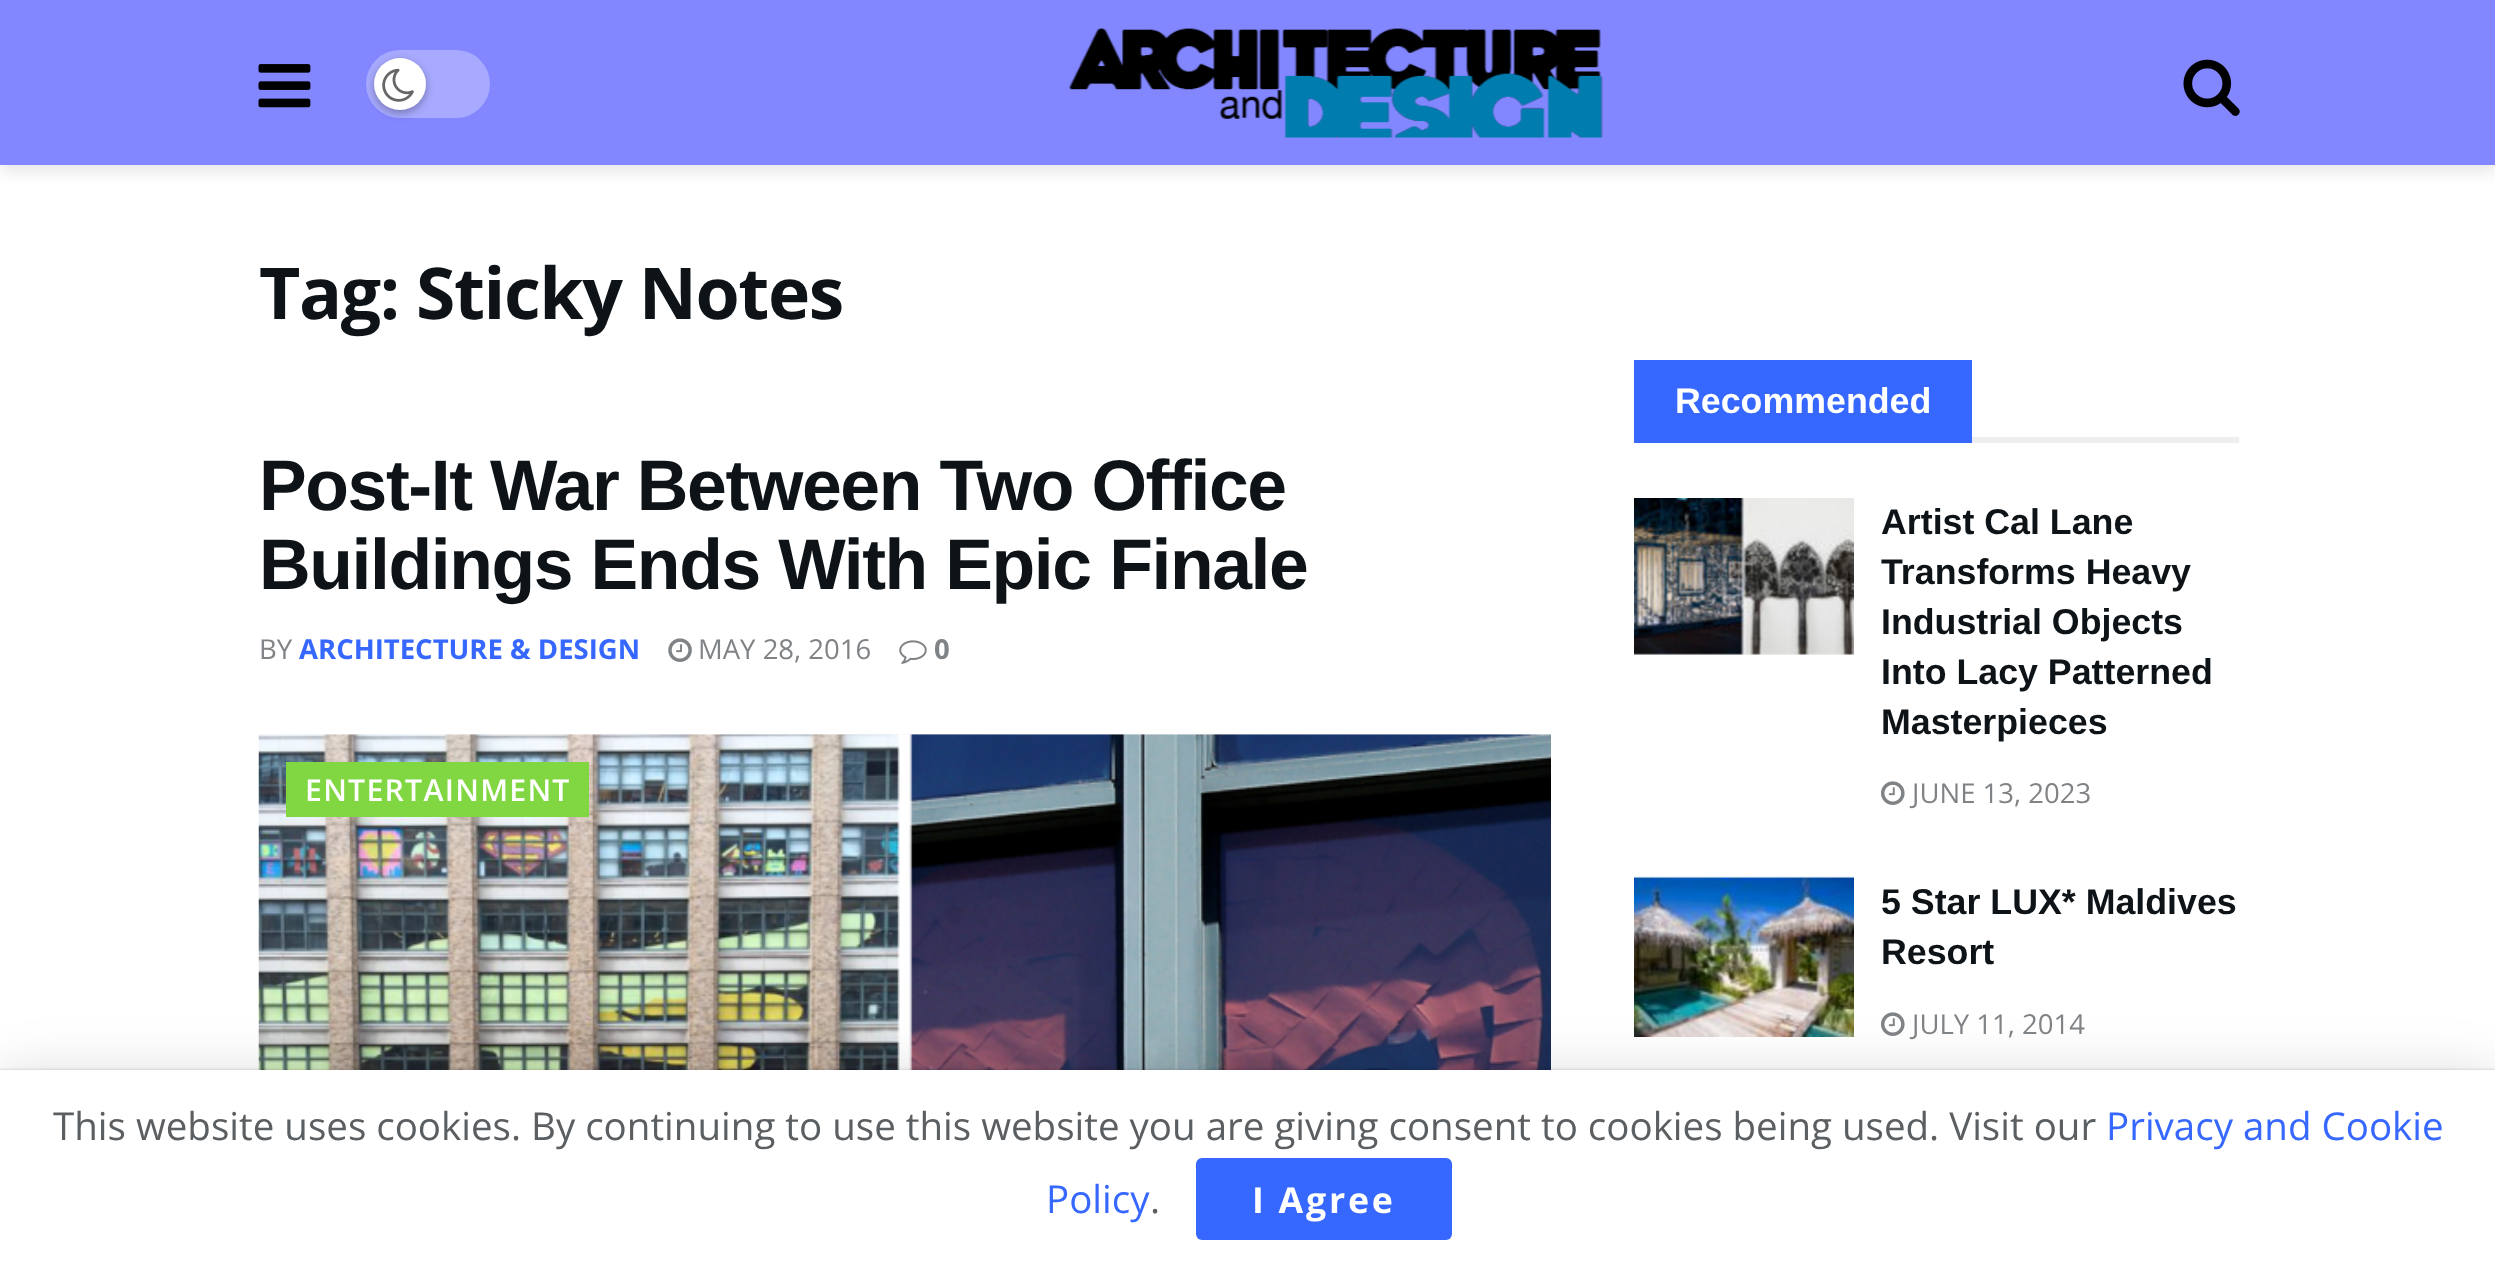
<!DOCTYPE html>
<meta charset="utf-8">
<style>body { margin: 0 } canvas { display: block }</style>
<canvas id="canvas" width="2495" height="1267"></canvas>
<img id="img1" src="img_01.png" hidden>
<img id="img2" src="img_02.png" hidden>
<img id="img3" src="img_03.png" hidden>
<img id="img4" src="img_04.png" hidden>
<img id="img5" src="img_05.png" hidden>
<img id="img6" src="img_06.png" hidden>
<img id="img7" src="img_08.png" hidden>
<img id="img8" src="img_07.png" hidden>
<img id="img9" src="img_10.png" hidden>
<img id="img10" src="img_09.png" hidden>
<img id="img11" src="img_11.png" hidden>
<img id="img12" src="img_12.png" hidden>
<script>
window.onload = function () {
	const canvas = document.getElementById("canvas");
	const ctx = canvas.getContext("2d");
	ctx.miterLimit = 4;
	ctx.fontKerning = "normal";
	function txt(s, x, y) {
		ctx.fillText(s, x, y);
	}
	function fill(x, y, w, h) {
		ctx.fillRect(x, y, w, h);
	}
	function round(x, y, w, h, r) {
		ctx.beginPath();
		ctx.roundRect(x, y, w, h, r);
		ctx.fill();
	}
	function img(id, x, y, w, h) {
		ctx.drawImage(document.getElementById(id), x, y, w, h);
	}

	ctx.fillStyle = "#FFFFFF";
	fill(0, 0, 2495, 1267);
	ctx.fillStyle = "rgba(0, 0, 0, 0.1)";
	ctx.filter = "blur(8px)";
	ctx.beginPath();
	ctx.rect(0, 6, 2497, 165);
	ctx.fill();
	ctx.filter = "none";
	ctx.fillStyle = "#8286FF";
	fill(0, 0, 2495, 165);
	img("img1", 258, 64, 53, 44);
	ctx.fillStyle = "#A8AAFF";
	round(366, 50, 124, 68, 34);
	ctx.fillStyle = "rgba(0, 0, 0, 0.3)";
	ctx.filter = "blur(4px)";
	ctx.beginPath();
	ctx.roundRect(374, 61, 52, 52, 26);
	ctx.fill();
	ctx.filter = "none";
	ctx.fillStyle = "#FFFFFF";
	ctx.beginPath();
	ctx.arc(400, 84, 26, 0, Math.PI * 2);
	ctx.fill();
	img("img2", 382, 68, 32, 34);
	img("img3", 1069, 28, 534, 110);
	img("img4", 2183, 59, 57, 57);
	img("img5", 668, 638, 24, 24);
	img("img6", 899, 640, 28, 24);
	ctx.fillStyle = "#F7F7F7";
	fill(259, 734, 1292, 1);
	img("img7", 783, 734, 245, 1);
	img("img8", 258, 734, 1293, 336);
	ctx.fillStyle = "#81D742";
	fill(286, 762, 303, 55);
	ctx.fillStyle = "#EEEEEE";
	fill(1972, 437, 267, 6);
	ctx.fillStyle = "#3667FF";
	fill(1634, 360, 338, 83);
	ctx.fillStyle = "#F7F7F7";
	fill(1634, 653, 220, 2);
	img("img9", 1721, 653, 45, 2);
	img("img10", 1634, 498, 220, 157);
	img("img11", 1881, 781, 24, 24);
	fill(1634, 877, 220, 1);
	img("img12", 1634, 876, 220, 161);
	img("img11", 1881, 1012, 24, 24);
	ctx.fillStyle = "rgba(0, 0, 0, 0.15)";
	ctx.filter = "blur(27.5px)";
	ctx.beginPath();
	ctx.rect(0, 1075, 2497, 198);
	ctx.fill();
	ctx.filter = "none";
	ctx.fillStyle = "rgba(0, 0, 0, 0.2)";
	ctx.filter = "blur(1.5px)";
	ctx.beginPath();
	ctx.rect(0, 1070, 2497, 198);
	ctx.fill();
	ctx.filter = "none";
	ctx.fillStyle = "#FFFFFF";
	fill(0, 1070, 2495, 197);
	ctx.fillStyle = "#3667FF";
	round(1196, 1158, 256, 82, 6);
	ctx.letterSpacing = "-1.4px";
	ctx.font = "bold 71.5px Open Sans";
	ctx.fillStyle = "#0D1317";
	txt("Tag: Sticky Notes", 259, 319);
	ctx.font = "bold 71.5px Liberation Sans";
	txt("Post-It War Between Two Office", 259, 510);
	txt("Buildings Ends With Epic Finale", 259, 589);
	ctx.letterSpacing = "0px";
	ctx.font = "27.5px Open Sans";
	ctx.fillStyle = "#808386";
	txt("BY", 259, 659);
	ctx.font = "bold 27.5px Open Sans";
	ctx.fillStyle = "#3667FF";
	txt("ARCHITECTURE & DESIGN", 299, 659);
	ctx.font = "27.5px Open Sans";
	ctx.fillStyle = "#808386";
	txt("MAY 28, 2016", 698, 659);
	ctx.font = "bold 27.5px Open Sans";
	txt("0", 934, 659);
	ctx.letterSpacing = "1.25px";
	ctx.font = "600 30.25px Open Sans";
	ctx.fillStyle = "#FFFFFF";
	txt("ENTERTAINMENT", 305, 801);
	ctx.letterSpacing = "0px";
	ctx.font = "bold 35.75px Liberation Sans";
	txt("Recommended", 1675, 413);
	ctx.fillStyle = "#0D1317";
	txt("Artist Cal Lane", 1881, 534);
	txt("Transforms Heavy", 1881, 584);
	txt("Industrial Objects", 1881, 634);
	txt("Into Lacy Patterned", 1881, 684);
	txt("Masterpieces", 1881, 734);
	ctx.font = "27.5px Open Sans";
	ctx.fillStyle = "#808386";
	txt("JUNE 13, 2023", 1912, 803);
	ctx.font = "bold 35.75px Liberation Sans";
	ctx.fillStyle = "#0D1317";
	txt("5 Star LUX* Maldives", 1881, 914);
	txt("Resort", 1881, 964);
	ctx.font = "27.5px Open Sans";
	ctx.fillStyle = "#808386";
	txt("JULY 11, 2014", 1912, 1034);
	ctx.font = "38.5px Open Sans";
	ctx.fillStyle = "#5B5F62";
	txt("This website uses cookies. By continuing to use this website you are giving consent to cookies being used. Visit our", 53, 1140);
	ctx.fillStyle = "#3667FF";
	txt("Privacy and Cookie", 2106, 1140);
	txt("Policy", 1046, 1213);
	ctx.fillStyle = "#5B5F62";
	txt(".", 1150, 1213);
	ctx.letterSpacing = "2.75px";
	ctx.font = "bold 35.75px Open Sans";
	ctx.fillStyle = "#FFFFFF";
	txt("I Agree", 1252, 1213);
};
</script>
